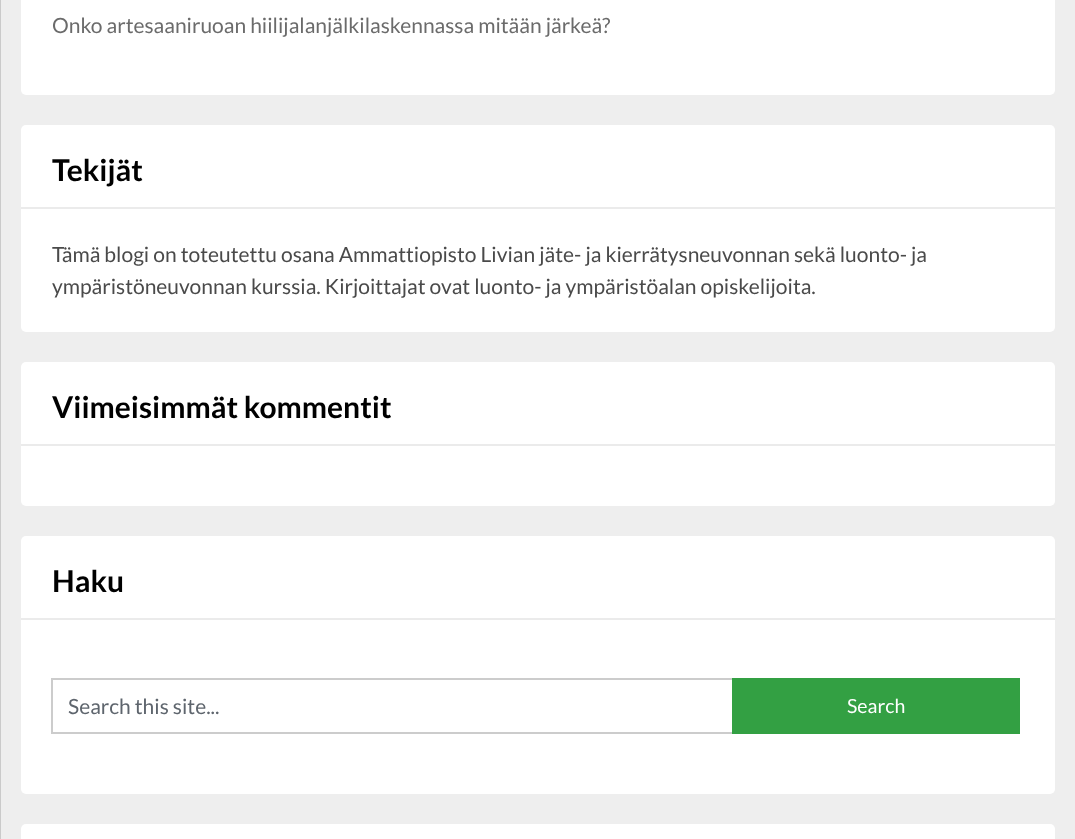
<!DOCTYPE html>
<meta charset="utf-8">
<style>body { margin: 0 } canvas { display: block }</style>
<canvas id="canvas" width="1075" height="839"></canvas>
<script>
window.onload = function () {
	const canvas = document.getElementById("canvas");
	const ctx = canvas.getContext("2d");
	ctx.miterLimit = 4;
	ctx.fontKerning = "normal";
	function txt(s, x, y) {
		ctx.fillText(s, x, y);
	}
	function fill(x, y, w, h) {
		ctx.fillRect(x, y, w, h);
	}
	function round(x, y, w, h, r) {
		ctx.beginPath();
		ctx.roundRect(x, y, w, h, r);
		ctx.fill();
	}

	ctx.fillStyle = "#EEEEEE";
	fill(0, 0, 1075, 839);
	ctx.fillStyle = "#CACACA";
	fill(0, 0, 1, 839);
	ctx.fillStyle = "#FFFFFF";
	round(21, -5, 1034, 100, 5);
	round(21, 125, 1034, 207, 5);
	ctx.fillStyle = "#EBEBEB";
	fill(21, 207, 1034, 2);
	ctx.fillStyle = "#FFFFFF";
	round(21, 362, 1034, 144, 5);
	ctx.fillStyle = "#EBEBEB";
	fill(21, 444, 1034, 2);
	ctx.fillStyle = "#FFFFFF";
	round(21, 536, 1034, 258, 5);
	ctx.fillStyle = "#EBEBEB";
	fill(21, 618, 1034, 2);
	ctx.fillStyle = "#CCCCCC";
	fill(51, 678, 681, 2);
	fill(51, 732, 681, 2);
	fill(51, 678, 2, 56);
	ctx.fillStyle = "#33A043";
	fill(732, 678, 288, 56);
	ctx.fillStyle = "#FFFFFF";
	round(21, 824, 1034, 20, 5);
	ctx.font = "21px Lato";
	ctx.fillStyle = "#6B6B6B";
	txt("Onko artesaaniruoan hiilijalanjälkilaskennassa mitään järkeä?", 52, 33);
	ctx.font = "bold 30px Lato";
	ctx.fillStyle = "#000000";
	txt("Tekijät", 52, 181);
	ctx.font = "21px Lato";
	ctx.fillStyle = "#4A4A4A";
	txt("Tämä blogi on toteutettu osana Ammattiopisto Livian jäte- ja kierrätysneuvonnan sekä luonto- ja", 52, 262);
	txt("ympäristöneuvonnan kurssia. Kirjoittajat ovat luonto- ja ympäristöalan opiskelijoita.", 52, 294);
	ctx.font = "bold 30px Lato";
	ctx.fillStyle = "#000000";
	txt("Viimeisimmät kommentit", 52, 418);
	txt("Haku", 52, 592);
	ctx.font = "21px Lato";
	ctx.fillStyle = "#5E656D";
	txt("Search this site...", 68, 714);
	ctx.font = "19.5px Lato";
	ctx.fillStyle = "#FFFFFF";
	txt("Search", 847, 713);
};
</script>
